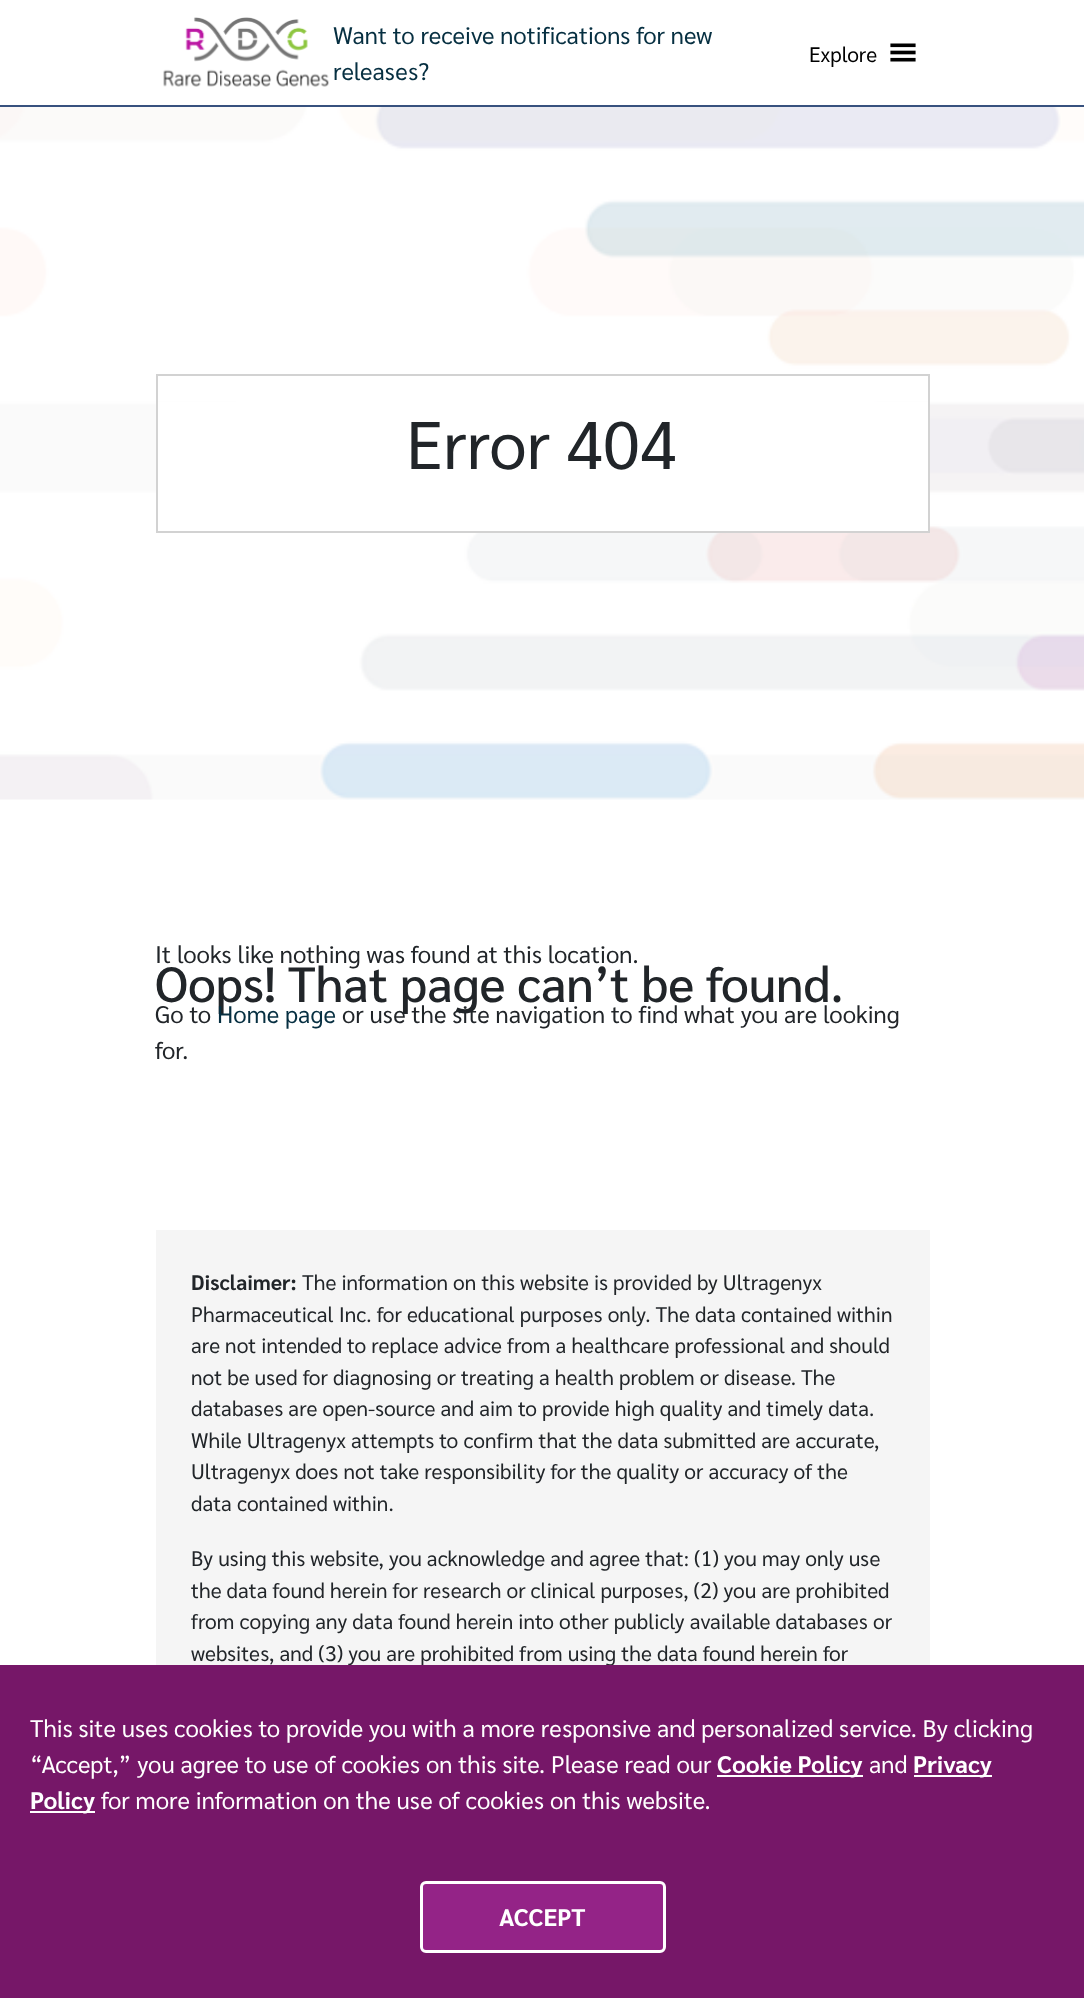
<!DOCTYPE html>
<meta charset="utf-8">
<style>body { margin: 0 } canvas { display: block }</style>
<canvas id="canvas" width="1084" height="1998"></canvas>
<img id="img1" src="img_01.png" hidden>
<img id="img2" src="img_02.png" hidden>
<img id="img3" src="img_03.png" hidden>
<script>
window.onload = function () {
	const canvas = document.getElementById("canvas");
	const ctx = canvas.getContext("2d");
	ctx.miterLimit = 4;
	ctx.fontKerning = "normal";
	function txt(s, x, y) {
		ctx.fillText(s, x, y);
	}
	function fill(x, y, w, h) {
		ctx.fillRect(x, y, w, h);
	}
	function img(id, x, y, w, h) {
		ctx.drawImage(document.getElementById(id), x, y, w, h);
	}

	ctx.fillStyle = "#FFFFFF";
	fill(0, 0, 1084, 1998);
	ctx.fillStyle = "#37517E";
	fill(0, 105, 1084, 2);
	img("img1", 163, 17, 166, 70);
	img("img2", 890, 43, 26, 19);
	img("img3", 0, 107, 1084, 693);
	ctx.fillStyle = "#FFFFFF";
	fill(158, 402, 770, 129);
	ctx.strokeStyle = "#D2D2D2";
	ctx.lineWidth = 2;
	ctx.strokeRect(157, 375, 772, 157);
	ctx.fillStyle = "#F5F5F5";
	fill(156, 1230, 774, 435);
	ctx.font = "24px Sarabun";
	ctx.fillStyle = "#062F41";
	txt("Want to receive notifications for new", 333, 44);
	txt("releases?", 333, 80);
	ctx.font = "21px Sarabun";
	ctx.fillStyle = "#000000";
	txt("Explore", 809, 62);
	ctx.font = "67px Sarabun";
	ctx.fillStyle = "#212529";
	txt("Error 404", 406, 469);
	ctx.font = "24px Sarabun";
	txt("It looks like nothing was found at this location.", 155, 963);
	txt("Go to", 155, 1023);
	ctx.font = "500 49.25px Sarabun";
	txt("Oops! That page can’t be found.", 155, 1002);
	ctx.font = "24px Sarabun";
	ctx.fillStyle = "#062F41";
	txt("Home page", 217, 1023);
	ctx.fillStyle = "#212529";
	txt("or use the site navigation to find what you are looking", 342, 1023);
	txt("for.", 155, 1059);
	ctx.font = "bold 21px Sarabun";
	txt("Disclaimer:", 191, 1290);
	ctx.font = "21px Sarabun";
	txt("The information on this website is provided by Ultragenyx", 302, 1290);
	txt("Pharmaceutical Inc. for educational purposes only. The data contained within", 191, 1322);
	txt("are not intended to replace advice from a healthcare professional and should", 191, 1353);
	txt("not be used for diagnosing or treating a health problem or disease. The", 191, 1385);
	txt("databases are open-source and aim to provide high quality and timely data.", 191, 1416);
	txt("While Ultragenyx attempts to confirm that the data submitted are accurate,", 191, 1448);
	txt("Ultragenyx does not take responsibility for the quality or accuracy of the", 191, 1479);
	txt("data contained within.", 191, 1511);
	txt("By using this website, you acknowledge and agree that: (1) you may only use", 191, 1566);
	txt("the data found herein for research or clinical purposes, (2) you are prohibited", 191, 1598);
	txt("from copying any data found herein into other publicly available databases or", 191, 1629);
	txt("websites, and (3) you are prohibited from using the data found herein for", 191, 1661);
	ctx.fillStyle = "#761768";
	fill(0, 1665, 1084, 333);
	ctx.font = "24px Sarabun";
	ctx.fillStyle = "#FFFFFF";
	txt("This site uses cookies to provide you with a more responsive and personalized service. By clicking", 30, 1737);
	txt("“Accept,” you agree to use of cookies on this site. Please read our", 30, 1773);
	fill(717, 1775, 146, 2);
	ctx.font = "bold 24px Sarabun";
	txt("Cookie Policy", 717, 1773);
	ctx.font = "24px Sarabun";
	txt("and", 869, 1773);
	fill(914, 1775, 78, 2);
	ctx.font = "bold 24px Sarabun";
	txt("Privacy", 913, 1773);
	fill(30, 1811, 65, 2);
	txt("Policy", 30, 1809);
	ctx.font = "24px Sarabun";
	txt("for more information on the use of cookies on this website.", 101, 1809);
	ctx.fillStyle = "#942387";
	ctx.beginPath();
	ctx.roundRect(421.5, 1882.5, 243, 69, 4.5);
	ctx.fill();
	ctx.strokeStyle = "#FFFFFF";
	ctx.lineWidth = 3;
	ctx.stroke();
	ctx.font = "bold 24px Sarabun";
	ctx.fillStyle = "#FFFFFF";
	txt("ACCEPT", 499, 1926);
};
</script>
